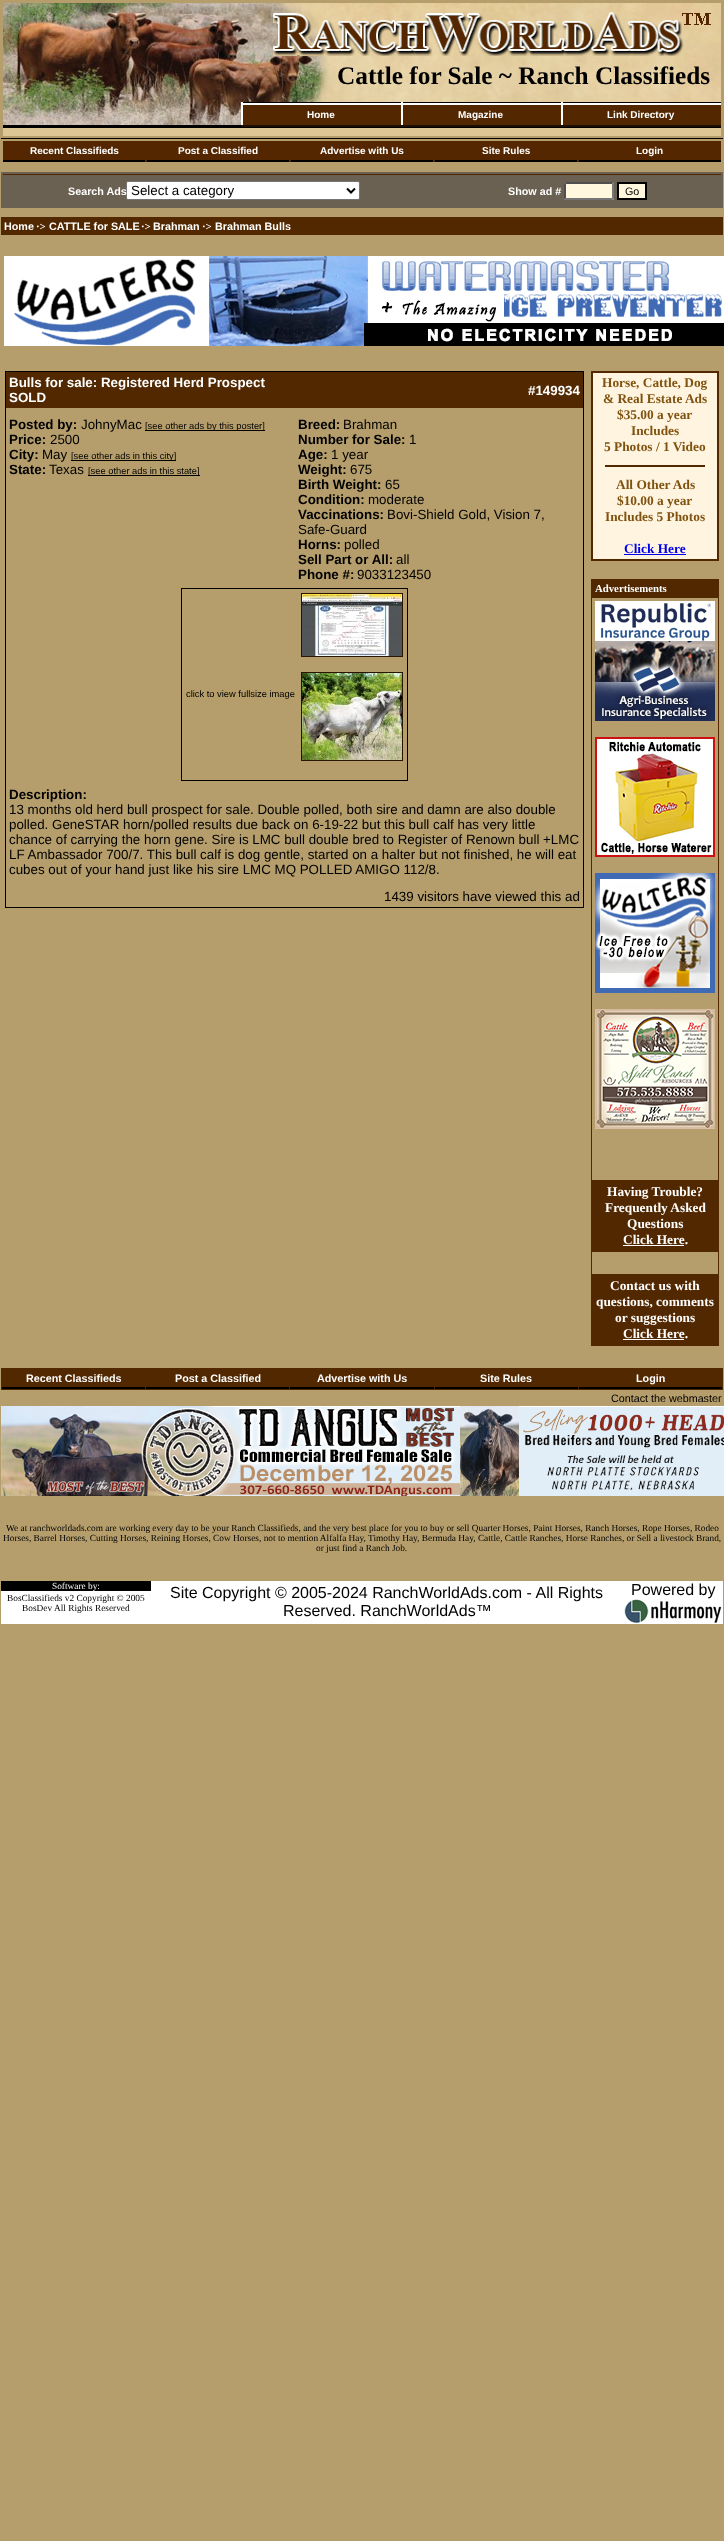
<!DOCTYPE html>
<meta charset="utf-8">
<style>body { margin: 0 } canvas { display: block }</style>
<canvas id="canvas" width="724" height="2541"></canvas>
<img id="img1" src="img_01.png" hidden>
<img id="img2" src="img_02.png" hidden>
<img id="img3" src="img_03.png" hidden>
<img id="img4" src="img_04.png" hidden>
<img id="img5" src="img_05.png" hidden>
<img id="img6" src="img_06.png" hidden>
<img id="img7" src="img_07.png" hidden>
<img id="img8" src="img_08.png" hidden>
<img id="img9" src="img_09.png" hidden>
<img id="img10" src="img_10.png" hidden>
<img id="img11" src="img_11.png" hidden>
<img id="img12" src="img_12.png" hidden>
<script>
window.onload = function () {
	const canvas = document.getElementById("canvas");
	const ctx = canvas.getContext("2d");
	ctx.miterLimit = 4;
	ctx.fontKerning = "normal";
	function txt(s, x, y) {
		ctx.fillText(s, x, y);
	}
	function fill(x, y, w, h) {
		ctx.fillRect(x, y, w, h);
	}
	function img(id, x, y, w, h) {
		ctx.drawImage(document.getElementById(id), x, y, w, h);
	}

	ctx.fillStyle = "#B59E6B";
	fill(0, 0, 724, 2541);
	ctx.fillStyle = "#DDC594";
	fill(3, 128, 718, 8);
	img("img1", 3, 3, 718, 122);
	img("img2", 273, 12, 438, 44);
	img("img3", 241, 102, 160, 25);
	img("img3", 401, 102, 160, 25);
	img("img3", 561, 102, 160, 25);
	ctx.fillStyle = "#000000";
	fill(3, 125, 238, 2);
	fill(3, 127, 718, 1);
	fill(1, 138, 722, 1);
	ctx.fillStyle = "#542700";
	fill(3, 141, 718, 21);
	ctx.fillStyle = "#000000";
	fill(3, 160, 142, 2);
	fill(147, 160, 142, 2);
	fill(291, 160, 142, 2);
	fill(435, 160, 142, 2);
	fill(579, 160, 142, 2);
	ctx.fillStyle = "#6B6152";
	fill(1, 172, 722, 36);
	ctx.fillStyle = "#542700";
	fill(3, 174, 718, 1);
	ctx.fillStyle = "#FFFFFF";
	ctx.beginPath();
	ctx.roundRect(126.5, 181.5, 233, 18, 1.5);
	ctx.fill();
	ctx.strokeStyle = "#767676";
	ctx.stroke();
	ctx.beginPath();
	ctx.moveTo(347, 188.5);
	ctx.lineTo(351, 192.5);
	ctx.lineTo(355, 188.5);
	ctx.strokeStyle = "#000000";
	ctx.lineWidth = 2;
	ctx.stroke();
	ctx.fillStyle = "#FFF7DE";
	fill(564, 182, 50, 18);
	ctx.fillStyle = "#4F4F4F";
	ctx.beginPath();
	ctx.moveTo(564, 182);
	ctx.lineTo(614, 182);
	ctx.lineTo(612, 184);
	ctx.lineTo(566, 184);
	ctx.closePath();
	ctx.fill();
	ctx.fillStyle = "#767676";
	ctx.beginPath();
	ctx.moveTo(614, 182);
	ctx.lineTo(614, 200);
	ctx.lineTo(612, 198);
	ctx.lineTo(612, 184);
	ctx.closePath();
	ctx.fill();
	ctx.beginPath();
	ctx.moveTo(614, 200);
	ctx.lineTo(564, 200);
	ctx.lineTo(566, 198);
	ctx.lineTo(612, 198);
	ctx.closePath();
	ctx.fill();
	ctx.fillStyle = "#4F4F4F";
	ctx.beginPath();
	ctx.moveTo(564, 200);
	ctx.lineTo(564, 182);
	ctx.lineTo(566, 184);
	ctx.lineTo(566, 198);
	ctx.closePath();
	ctx.fill();
	ctx.fillStyle = "#FFF7DE";
	ctx.beginPath();
	ctx.rect(618, 183, 28, 16);
	ctx.fill();
	ctx.stroke();
	ctx.fillStyle = "#522800";
	fill(1, 217, 722, 18);
	img("img4", 4, 256, 720, 90);
	ctx.lineWidth = 1;
	ctx.strokeRect(5.5, 371.5, 578, 536);
	fill(6, 372, 577, 36);
	ctx.fillStyle = "#000000";
	fill(145, 430, 120, 1);
	fill(71, 460, 105, 1);
	fill(88, 475, 112, 1);
	ctx.strokeRect(181.5, 588.5, 226, 192);
	ctx.strokeStyle = "#291400";
	ctx.strokeRect(301.5, 593.5, 101, 63);
	img("img5", 302, 594, 100, 62);
	ctx.strokeRect(301.5, 672.5, 101, 88);
	img("img6", 302, 673, 100, 87);
	ctx.fillStyle = "#522800";
	fill(591, 371, 128, 190);
	ctx.fillStyle = "#FFF4E0";
	fill(593, 373, 124, 186);
	ctx.fillStyle = "#522800";
	fill(605, 465, 100, 2);
	ctx.fillStyle = "#0000EE";
	fill(624, 554, 62, 1);
	ctx.fillStyle = "#522800";
	fill(591, 579, 128, 767);
	ctx.fillStyle = "#B59E6B";
	fill(592, 598, 126, 582);
	img("img7", 595, 601, 120, 120);
	img("img8", 595, 737, 120, 120);
	img("img9", 595, 873, 120, 120);
	img("img10", 595, 1009, 120, 120);
	ctx.fillStyle = "#FFFFFF";
	fill(623, 1245, 61, 1);
	ctx.fillStyle = "#B59E6B";
	fill(592, 1252, 126, 22);
	ctx.fillStyle = "#FFFFFF";
	fill(623, 1339, 61, 1);
	ctx.fillStyle = "#522800";
	fill(1, 1368, 722, 22);
	ctx.fillStyle = "#000000";
	fill(2, 1387, 143, 2);
	fill(146, 1387, 143, 2);
	fill(290, 1387, 144, 2);
	fill(435, 1387, 143, 2);
	fill(579, 1387, 143, 2);
	img("img11", 1, 1406, 723, 90);
	ctx.fillStyle = "#FFFFFF";
	fill(1, 1581, 722, 43);
	ctx.fillStyle = "#000000";
	fill(1, 1581, 150, 10);
	img("img12", 623, 1599, 99, 24);
	ctx.font = "bold 25.3px Liberation Serif";
	txt("Cattle for Sale ~ Ranch Classifieds", 337, 84);
	ctx.font = "bold 10px Liberation Sans";
	ctx.fillStyle = "#FFFFFF";
	txt("Home", 307, 118);
	txt("Magazine", 458, 118);
	txt("Link Directory", 607, 118);
	txt("Recent Classifieds", 30, 154);
	txt("Post a Classified", 178, 154);
	txt("Advertise with Us", 320, 154);
	txt("Site Rules", 482, 154);
	txt("Login", 636, 154);
	ctx.font = "bold 10.75px Liberation Sans";
	txt("Search Ads", 68, 195);
	ctx.font = "13.35px Liberation Sans";
	ctx.fillStyle = "#000000";
	txt("Select a category", 131, 195);
	ctx.font = "bold 10.75px Liberation Sans";
	ctx.fillStyle = "#FFFFFF";
	txt("Show ad #", 508, 195);
	ctx.font = "10.75px Liberation Sans";
	ctx.fillStyle = "#000000";
	txt("Go", 625, 195);
	ctx.font = "bold 10.75px Liberation Sans";
	ctx.fillStyle = "#FFFFFF";
	txt("Home", 4, 230);
	ctx.font = "bold 10.75px Liberation Serif";
	txt("·>", 36, 230);
	ctx.font = "bold 10.75px Liberation Sans";
	txt("CATTLE for SALE", 49, 230);
	ctx.font = "bold 10.75px Liberation Serif";
	txt("·>", 141, 230);
	ctx.font = "bold 10.75px Liberation Sans";
	txt("Brahman", 153, 230);
	ctx.font = "bold 10.75px Liberation Serif";
	txt("·>", 202, 230);
	ctx.font = "bold 10.75px Liberation Sans";
	txt("Brahman Bulls", 215, 230);
	ctx.font = "bold 13.35px Liberation Sans";
	txt("Bulls for sale: Registered Herd Prospect", 9, 387);
	txt("SOLD", 9, 402);
	txt("#149934", 528, 395);
	ctx.fillStyle = "#000000";
	txt("Posted by:", 9, 429);
	ctx.font = "13.35px Liberation Sans";
	txt("JohnyMac", 81, 429);
	ctx.font = "9.33px Liberation Sans";
	txt("[see other ads by this poster]", 145, 429);
	ctx.font = "bold 13.35px Liberation Sans";
	txt("Price:", 9, 444);
	ctx.font = "13.35px Liberation Sans";
	txt("2500", 50, 444);
	ctx.font = "bold 13.35px Liberation Sans";
	txt("City:", 9, 459);
	ctx.font = "13.35px Liberation Sans";
	txt("May", 42, 459);
	ctx.font = "9.33px Liberation Sans";
	txt("[see other ads in this city]", 71, 459);
	ctx.font = "bold 13.35px Liberation Sans";
	txt("State:", 9, 474);
	ctx.font = "13.35px Liberation Sans";
	txt("Texas", 49, 474);
	ctx.font = "9.33px Liberation Sans";
	txt("[see other ads in this state]", 88, 474);
	ctx.font = "bold 13.35px Liberation Sans";
	txt("Breed:", 298, 429);
	ctx.font = "13.35px Liberation Sans";
	txt("Brahman", 343, 429);
	ctx.font = "bold 13.35px Liberation Sans";
	txt("Number for Sale:", 298, 444);
	ctx.font = "13.35px Liberation Sans";
	txt("1", 409, 444);
	ctx.font = "bold 13.35px Liberation Sans";
	txt("Age:", 298, 459);
	ctx.font = "13.35px Liberation Sans";
	txt("1 year", 331, 459);
	ctx.font = "bold 13.35px Liberation Sans";
	txt("Weight:", 298, 474);
	ctx.font = "13.35px Liberation Sans";
	txt("675", 350, 474);
	ctx.font = "bold 13.35px Liberation Sans";
	txt("Birth Weight:", 298, 489);
	ctx.font = "13.35px Liberation Sans";
	txt("65", 385, 489);
	ctx.font = "bold 13.35px Liberation Sans";
	txt("Condition:", 298, 504);
	ctx.font = "13.35px Liberation Sans";
	txt("moderate", 368, 504);
	ctx.font = "bold 13.35px Liberation Sans";
	txt("Vaccinations:", 298, 519);
	ctx.font = "13.35px Liberation Sans";
	txt("Bovi-Shield Gold, Vision 7,", 387, 519);
	txt("Safe-Guard", 298, 534);
	ctx.font = "bold 13.35px Liberation Sans";
	txt("Horns:", 298, 549);
	ctx.font = "13.35px Liberation Sans";
	txt("polled", 344, 549);
	ctx.font = "bold 13.35px Liberation Sans";
	txt("Sell Part or All:", 298, 564);
	ctx.font = "13.35px Liberation Sans";
	txt("all", 396, 564);
	ctx.font = "bold 13.35px Liberation Sans";
	txt("Phone #:", 298, 579);
	ctx.font = "13.35px Liberation Sans";
	txt("9033123450", 357, 579);
	ctx.font = "9.33px Liberation Sans";
	txt("click to view fullsize image", 186, 697);
	ctx.font = "bold 13.35px Liberation Sans";
	txt("Description:", 9, 799);
	ctx.font = "13.35px Liberation Sans";
	txt("13 months old herd bull prospect for sale. Double polled, both sire and damn are also double", 9, 814);
	txt("polled. GeneSTAR horn/polled results due back on 6-19-22 but this bull calf has very little", 9, 829);
	txt("chance of carrying the horn gene. Sire is LMC bull double bred to Register of Renown bull +LMC", 9, 844);
	txt("LF Ambassador 700/7. This bull calf is dog gentle, started on a halter but not finished, he will eat", 9, 859);
	txt("cubes out of your hand just like his sire LMC MQ POLLED AMIGO 112/8.", 9, 874);
	txt("1439 visitors have viewed this ad", 384, 901);
	ctx.font = "bold 13.35px Liberation Serif";
	ctx.fillStyle = "#7F530F";
	txt("Horse, Cattle, Dog", 602, 387);
	txt("& Real Estate Ads", 603, 403);
	txt("$35.00 a year", 617, 419);
	txt("Includes", 631, 435);
	txt("5 Photos / 1 Video", 604, 451);
	txt("All Other Ads", 616, 489);
	txt("$10.00 a year", 617, 505);
	txt("Includes 5 Photos", 605, 521);
	ctx.fillStyle = "#0000EE";
	txt("Click Here", 624, 553);
	ctx.font = "bold 10.75px Liberation Serif";
	ctx.fillStyle = "#FFFFFF";
	txt("Advertisements", 595, 592);
	ctx.font = "bold 13.35px Liberation Serif";
	txt("Having Trouble?", 607, 1196);
	txt("Frequently Asked", 605, 1212);
	txt("Questions", 627, 1228);
	txt("Click Here.", 623, 1244);
	txt("Contact us with", 610, 1290);
	txt("questions, comments", 596, 1306);
	txt("or suggestions", 615, 1322);
	txt("Click Here.", 623, 1338);
	ctx.font = "bold 10.75px Liberation Sans";
	txt("Recent Classifieds", 26, 1382);
	txt("Post a Classified", 175, 1382);
	txt("Advertise with Us", 317, 1382);
	txt("Site Rules", 480, 1382);
	txt("Login", 636, 1382);
	ctx.font = "10.75px Liberation Sans";
	ctx.fillStyle = "#000000";
	txt("Contact the webmaster", 611, 1402);
	ctx.font = "9.33px Liberation Serif";
	txt("We at ranchworldads.com are working every day to be your Ranch Classifieds, and the very best place for you to buy or sell Quarter Horses, Paint Horses, Ranch Horses, Rope Horses, Rodeo", 6, 1531);
	txt("Horses, Barrel Horses, Cutting Horses, Reining Horses, Cow Horses, not to mention Alfalfa Hay, Timothy Hay, Bermuda Hay, Cattle, Cattle Ranches, Horse Ranches, or Sell a livestock Brand,", 3, 1541);
	txt("or just find a Ranch Job.", 316, 1551);
	ctx.fillStyle = "#FFFFFF";
	txt("Software by:", 52, 1589);
	ctx.font = "16px Liberation Sans";
	ctx.fillStyle = "#000000";
	txt("Site Copyright © 2005-2024 RanchWorldAds.com - All Rights", 170, 1598);
	txt("Reserved. RanchWorldAds™", 283, 1616);
	txt("Powered by", 631, 1595);
	ctx.font = "9.33px Liberation Serif";
	txt("BosClassifieds v2 Copyright © 2005", 7, 1601);
	txt("BosDev", 22, 1611);
	txt("All Rights Reserved", 54, 1611);
};
</script>
